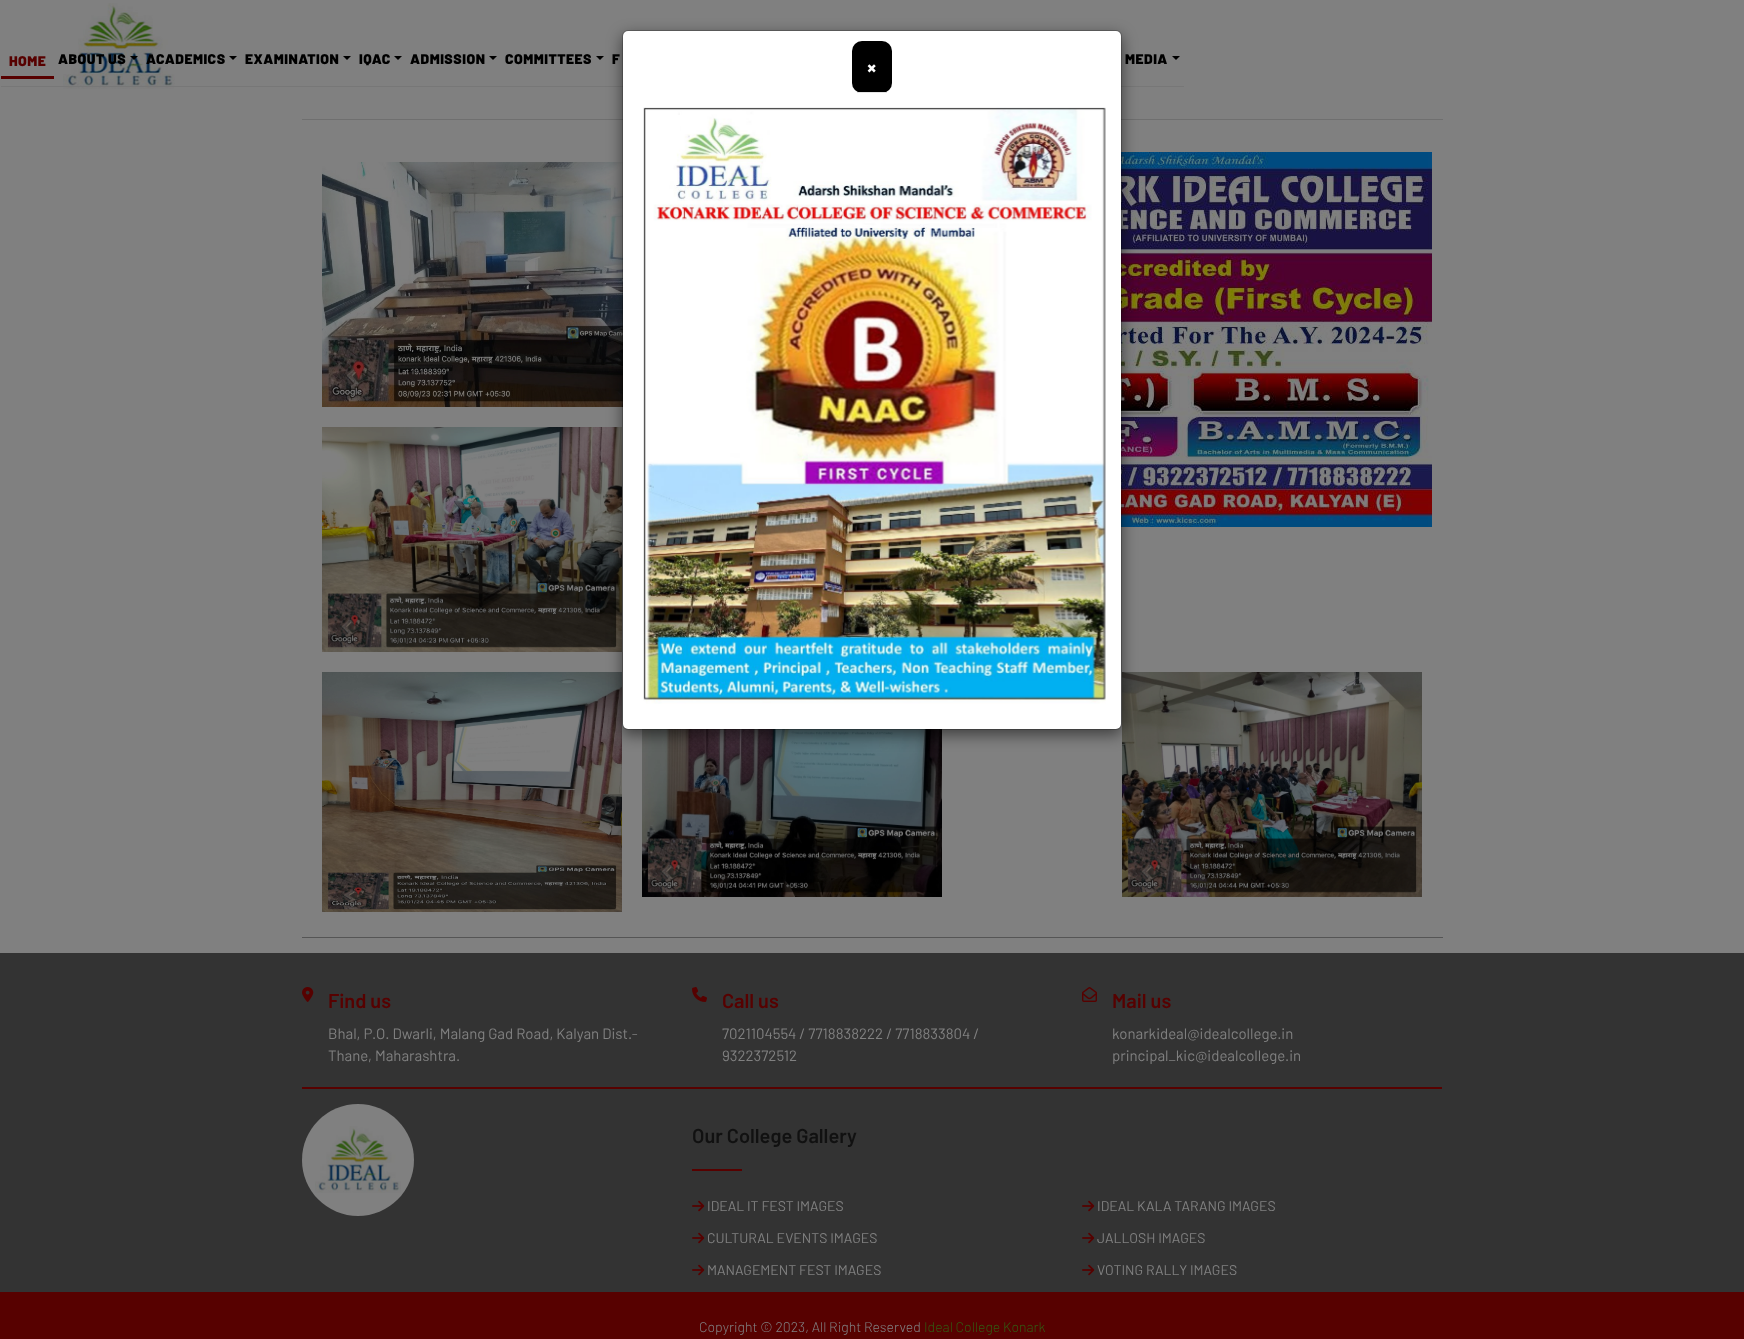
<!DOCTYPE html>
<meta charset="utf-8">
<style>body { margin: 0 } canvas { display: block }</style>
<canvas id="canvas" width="1744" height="1339"></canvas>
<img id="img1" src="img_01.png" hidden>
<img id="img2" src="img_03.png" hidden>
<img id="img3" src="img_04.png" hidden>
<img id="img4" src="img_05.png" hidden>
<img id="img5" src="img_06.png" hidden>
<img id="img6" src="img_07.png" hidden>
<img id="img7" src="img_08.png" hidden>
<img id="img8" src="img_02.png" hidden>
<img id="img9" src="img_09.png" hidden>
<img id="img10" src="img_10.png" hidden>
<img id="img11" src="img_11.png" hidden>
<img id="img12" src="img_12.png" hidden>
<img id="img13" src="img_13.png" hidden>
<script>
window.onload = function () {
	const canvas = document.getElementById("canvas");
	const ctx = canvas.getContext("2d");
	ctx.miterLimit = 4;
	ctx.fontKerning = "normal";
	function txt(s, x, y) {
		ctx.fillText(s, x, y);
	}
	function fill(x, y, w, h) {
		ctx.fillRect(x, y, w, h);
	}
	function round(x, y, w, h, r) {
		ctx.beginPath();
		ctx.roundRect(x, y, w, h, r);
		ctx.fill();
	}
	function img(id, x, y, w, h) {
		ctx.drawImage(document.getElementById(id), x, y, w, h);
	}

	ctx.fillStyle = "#808080";
	fill(0, 0, 1744, 1339);
	img("img1", 63, 3, 112, 86);
	ctx.fillStyle = "#777777";
	fill(1, 86, 622, 1);
	ctx.fillStyle = "#570100";
	fill(1, 76, 53, 3);
	ctx.fillStyle = "#000000";
	ctx.beginPath();
	ctx.moveTo(130, 56);
	ctx.lineTo(138, 56);
	ctx.lineTo(134, 60);
	ctx.closePath();
	ctx.fill();
	ctx.beginPath();
	ctx.moveTo(229, 56);
	ctx.lineTo(237, 56);
	ctx.lineTo(233, 60);
	ctx.closePath();
	ctx.fill();
	ctx.beginPath();
	ctx.moveTo(343, 56);
	ctx.lineTo(351, 56);
	ctx.lineTo(347, 60);
	ctx.closePath();
	ctx.fill();
	ctx.beginPath();
	ctx.moveTo(394, 56);
	ctx.lineTo(402, 56);
	ctx.lineTo(398, 60);
	ctx.closePath();
	ctx.fill();
	ctx.beginPath();
	ctx.moveTo(489, 56);
	ctx.lineTo(497, 56);
	ctx.lineTo(493, 60);
	ctx.closePath();
	ctx.fill();
	ctx.beginPath();
	ctx.moveTo(596, 56);
	ctx.lineTo(604, 56);
	ctx.lineTo(600, 60);
	ctx.closePath();
	ctx.fill();
	ctx.fillStyle = "#777777";
	fill(1121, 86, 63, 1);
	ctx.fillStyle = "#000000";
	ctx.beginPath();
	ctx.moveTo(1172, 56);
	ctx.lineTo(1180, 56);
	ctx.lineTo(1176, 60);
	ctx.closePath();
	ctx.fill();
	ctx.fillStyle = "#6F6F6F";
	fill(302, 119, 1141, 1);
	img("img2", 322, 162, 301, 245);
	img("img3", 1121, 152, 311, 375);
	img("img4", 322, 427, 300, 225);
	img("img5", 322, 672, 300, 240);
	img("img6", 642, 729, 300, 168);
	img("img7", 1122, 672, 300, 225);
	ctx.fillStyle = "rgba(0, 0, 0, 0.5)";
	ctx.filter = "blur(7.5px)";
	ctx.beginPath();
	ctx.roundRect(622, 35, 500, 700, 6);
	ctx.fill();
	ctx.filter = "none";
	ctx.fillStyle = "#FFFFFF";
	round(623, 31, 498, 698, 5);
	ctx.beginPath();
	ctx.roundRect(622.5, 30.5, 499, 699, 5.5);
	ctx.strokeStyle = "rgba(0, 0, 0, 0.2)";
	ctx.stroke();
	ctx.fillStyle = "#000000";
	round(852, 41, 40, 52, 10);
	ctx.fillStyle = "#E5E5E5";
	fill(857, 92, 30, 1);
	img("img8", 643, 107, 463, 597);
	ctx.fillStyle = "#555555";
	fill(302, 937, 1141, 1);
	ctx.fillStyle = "#333333";
	fill(0, 953, 1744, 339);
	ctx.fillStyle = "#570100";
	fill(302, 1087, 1140, 2);
	img("img9", 302, 987, 12, 15);
	img("img10", 692, 987, 15, 15);
	img("img11", 1082, 987, 15, 15);
	ctx.fillStyle = "#808080";
	ctx.beginPath();
	ctx.arc(358, 1160, 56, 0, Math.PI * 2);
	ctx.fill();
	img("img12", 315, 1126, 86, 67);
	ctx.fillStyle = "#570100";
	fill(692, 1169, 50, 2);
	img("img13", 692, 1200, 13, 12);
	img("img13", 692, 1232, 13, 12);
	img("img13", 692, 1264, 13, 12);
	img("img13", 1082, 1200, 13, 12);
	img("img13", 1082, 1232, 13, 12);
	img("img13", 1082, 1264, 13, 12);
	fill(0, 1292, 1744, 47);
	ctx.letterSpacing = "0.5px";
	ctx.font = "900 14px Barlow";
	txt("HOME", 9, 66);
	ctx.fillStyle = "#000000";
	txt("ABOUT US", 58, 64);
	txt("ACADEMICS", 146, 64);
	txt("EXAMINATION", 245, 64);
	txt("IQAC", 359, 64);
	txt("ADMISSION", 410, 64);
	txt("COMMITTEES", 505, 64);
	txt("F", 612, 64);
	txt("MEDIA", 1125, 64);
	ctx.letterSpacing = "0px";
	ctx.font = "bold 21px Barlow";
	ctx.fillStyle = "#FFFFFF";
	txt("×", 867, 75);
	ctx.font = "600 20px Barlow";
	ctx.fillStyle = "#570100";
	txt("Find us", 328, 1008);
	ctx.font = "15px Barlow";
	ctx.fillStyle = "#808080";
	txt("Bhal, P.O. Dwarli, Malang Gad Road, Kalyan Dist.-", 328, 1039);
	txt("Thane, Maharashtra.", 328, 1061);
	ctx.font = "600 20px Barlow";
	ctx.fillStyle = "#570100";
	txt("Call us", 722, 1008);
	ctx.font = "15px Barlow";
	ctx.fillStyle = "#808080";
	txt("7021104554 / 7718838222 / 7718833804 /", 722, 1039);
	txt("9322372512", 722, 1061);
	ctx.font = "600 20px Barlow";
	ctx.fillStyle = "#570100";
	txt("Mail us", 1112, 1008);
	ctx.font = "15px Barlow";
	ctx.fillStyle = "#808080";
	txt("konarkideal@idealcollege.in", 1112, 1039);
	txt("principal_kic@idealcollege.in", 1112, 1061);
	ctx.font = "600 20px Barlow";
	ctx.fillStyle = "#111111";
	txt("Our College Gallery", 692, 1143);
	ctx.font = "14px Barlow";
	ctx.fillStyle = "#808080";
	txt("IDEAL IT FEST IMAGES", 707, 1211);
	txt("CULTURAL EVENTS IMAGES", 707, 1243);
	txt("MANAGEMENT FEST IMAGES", 707, 1275);
	txt("IDEAL KALA TARANG IMAGES", 1097, 1211);
	txt("JALLOSH IMAGES", 1097, 1243);
	txt("VOTING RALLY IMAGES", 1097, 1275);
	ctx.font = "300 14px Barlow";
	txt("Copyright © 2023, All Right Reserved", 699, 1332);
	ctx.fillStyle = "#325C12";
	txt("Ideal College Konark", 924, 1332);
};
</script>
